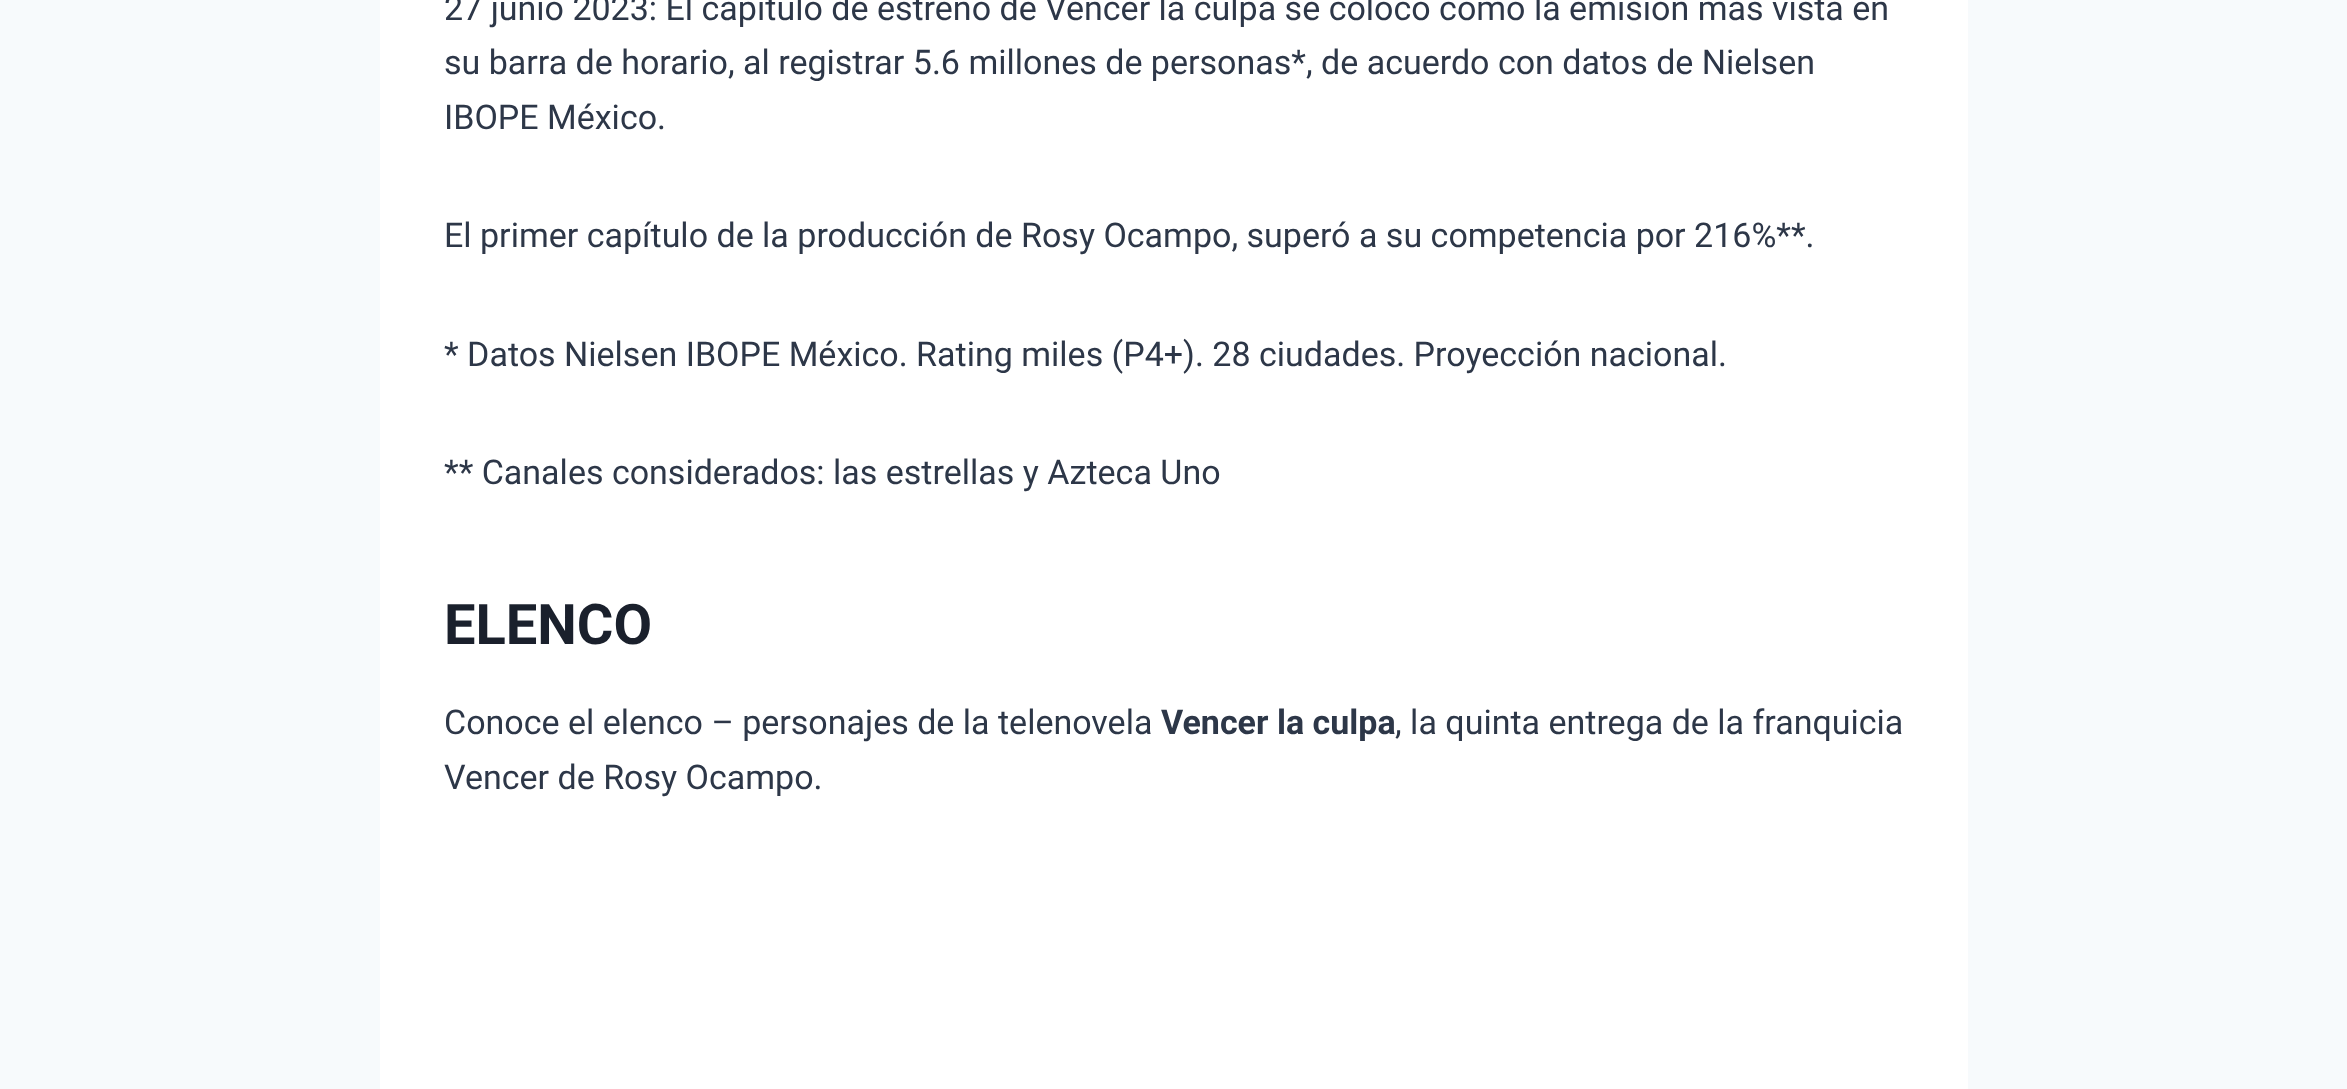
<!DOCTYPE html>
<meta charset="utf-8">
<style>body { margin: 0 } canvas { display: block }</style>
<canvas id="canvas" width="2347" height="1089"></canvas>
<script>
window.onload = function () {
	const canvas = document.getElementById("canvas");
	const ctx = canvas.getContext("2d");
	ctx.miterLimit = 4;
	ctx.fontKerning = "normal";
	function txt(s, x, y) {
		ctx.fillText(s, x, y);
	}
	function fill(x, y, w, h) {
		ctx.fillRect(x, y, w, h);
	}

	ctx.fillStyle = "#F7FAFC";
	fill(0, 0, 2347, 1089);
	ctx.fillStyle = "#FFFFFF";
	fill(380, 0, 1588, 1089);
	ctx.font = "34px Roboto";
	ctx.fillStyle = "#2D3748";
	txt("27 junio 2023: El capítulo de estreno de Vencer la culpa se colocó como la emisión más vista en", 444, 20);
	txt("su barra de horario, al registrar 5.6 millones de personas*, de acuerdo con datos de Nielsen", 444, 74);
	txt("IBOPE México.", 444, 129);
	txt("El primer capítulo de la producción de Rosy Ocampo, superó a su competencia por 216%**.", 444, 247);
	txt("* Datos Nielsen IBOPE México. Rating miles (P4+). 28 ciudades. Proyección nacional.", 444, 366);
	txt("** Canales considerados: las estrellas y Azteca Uno", 444, 484);
	ctx.font = "bold 56px Roboto";
	ctx.fillStyle = "#1A202C";
	txt("ELENCO", 444, 644);
	ctx.font = "34px Roboto";
	ctx.fillStyle = "#2D3748";
	txt("Conoce el elenco – personajes de la telenovela", 444, 734);
	ctx.font = "bold 34px Roboto";
	txt("Vencer la culpa", 1161, 734);
	ctx.font = "34px Roboto";
	txt(", la quinta entrega de la franquicia", 1395, 734);
	txt("Vencer de Rosy Ocampo.", 444, 789);
};
</script>
